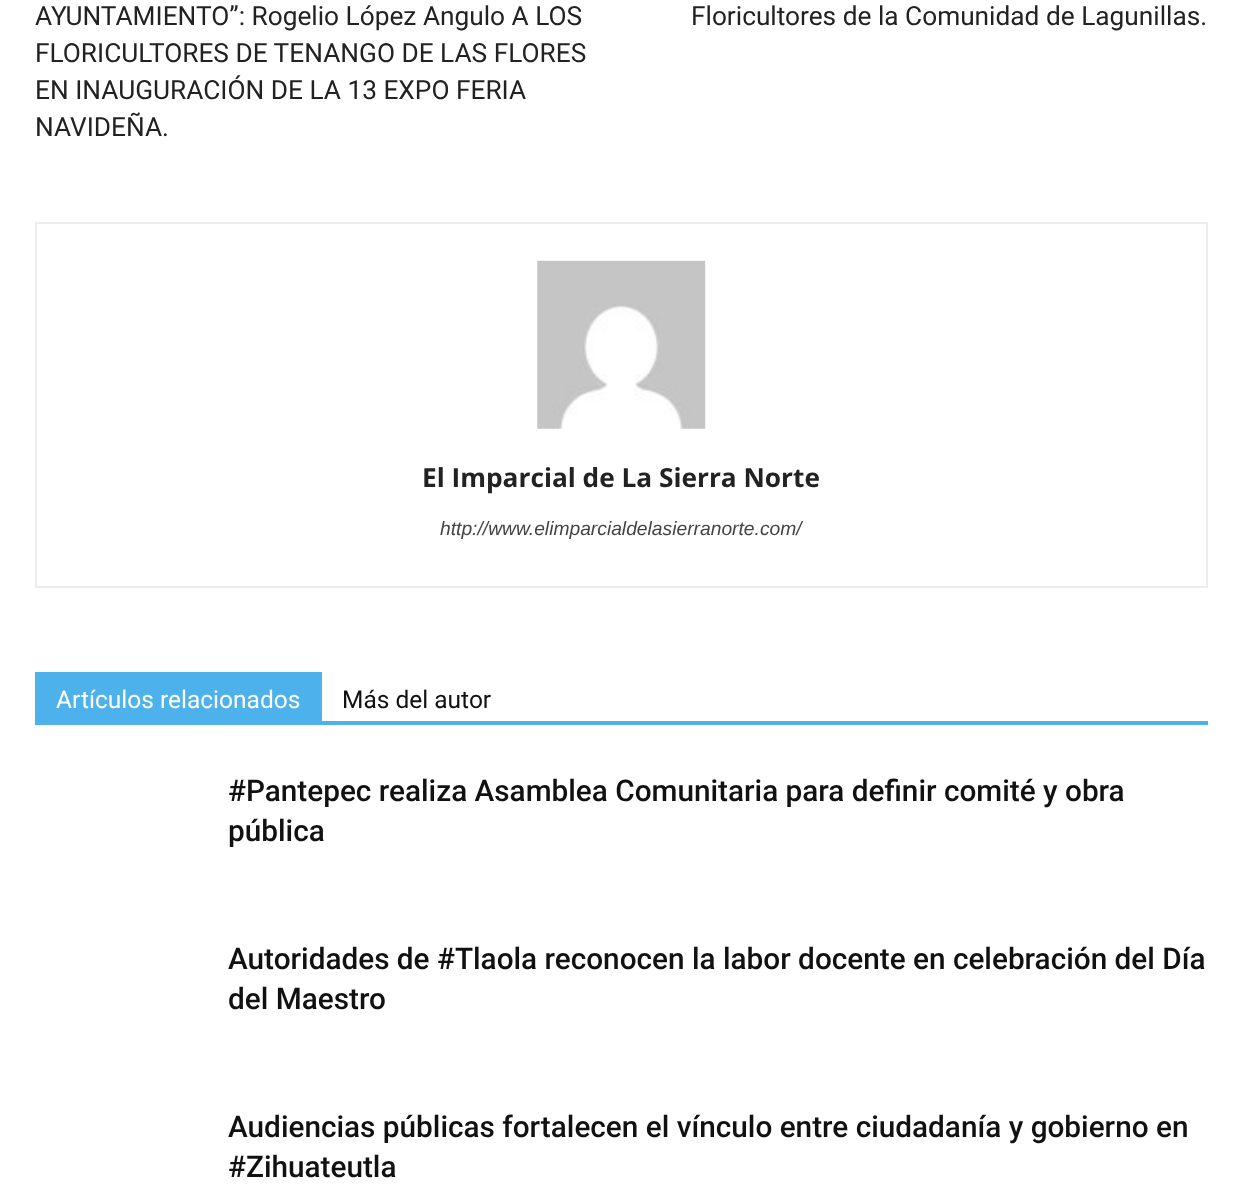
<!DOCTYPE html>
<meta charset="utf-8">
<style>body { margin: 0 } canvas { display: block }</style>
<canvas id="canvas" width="1242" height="1203"></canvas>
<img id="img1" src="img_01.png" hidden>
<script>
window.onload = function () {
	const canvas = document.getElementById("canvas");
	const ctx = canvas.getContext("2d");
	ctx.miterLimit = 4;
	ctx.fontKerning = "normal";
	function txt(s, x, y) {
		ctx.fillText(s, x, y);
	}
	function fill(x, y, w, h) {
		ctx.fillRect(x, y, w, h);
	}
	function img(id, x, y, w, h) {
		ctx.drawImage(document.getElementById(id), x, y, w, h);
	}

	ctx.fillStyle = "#FFFFFF";
	fill(0, 0, 1242, 1203);
	ctx.strokeStyle = "#EDEDED";
	ctx.lineWidth = 2;
	ctx.strokeRect(36, 223, 1171, 364);
	img("img1", 537, 260, 169, 169);
	ctx.fillStyle = "#4DB2EC";
	fill(35, 721, 1173, 4);
	fill(35, 672, 287, 49);
	ctx.font = "26.25px Roboto";
	ctx.fillStyle = "#222222";
	txt("AYUNTAMIENTO”: Rogelio López Angulo A LOS", 35, 25);
	txt("FLORICULTORES DE TENANGO DE LAS FLORES", 35, 62);
	txt("EN INAUGURACIÓN DE LA 13 EXPO FERIA", 35, 99);
	txt("NAVIDEÑA.", 35, 136);
	txt("Floricultores de la Comunidad de Lagunillas.", 691, 25);
	ctx.font = "bold 26.25px Open Sans";
	txt("El Imparcial de La Sierra Norte", 422, 487);
	ctx.font = "italic 19.25px Liberation Sans";
	ctx.fillStyle = "#444444";
	txt("http://www.elimparcialdelasierranorte.com/", 440, 535);
	ctx.font = "24.5px Roboto";
	ctx.fillStyle = "#FFFFFF";
	txt("Artículos relacionados", 56, 708);
	ctx.fillStyle = "#111111";
	txt("Más del autor", 342, 708);
	ctx.font = "500 29.75px Roboto";
	txt("#Pantepec realiza Asamblea Comunitaria para definir comité y obra", 228, 801);
	txt("pública", 228, 841);
	txt("Autoridades de #Tlaola reconocen la labor docente en celebración del Día", 228, 969);
	txt("del Maestro", 228, 1009);
	txt("Audiencias públicas fortalecen el vínculo entre ciudadanía y gobierno en", 228, 1137);
	txt("#Zihuateutla", 228, 1177);
};
</script>
